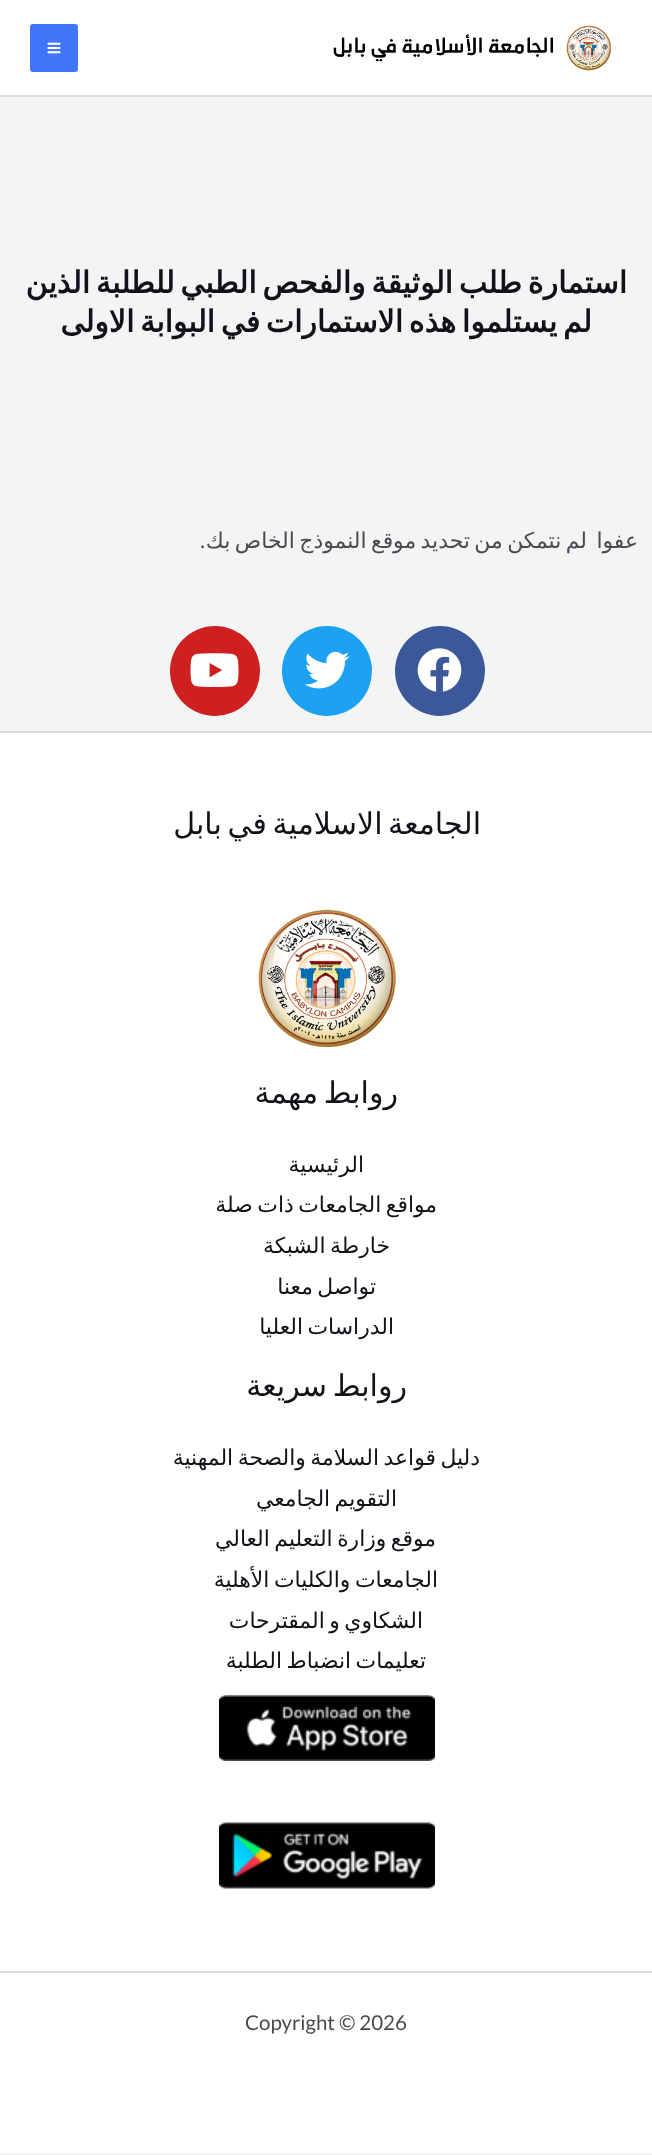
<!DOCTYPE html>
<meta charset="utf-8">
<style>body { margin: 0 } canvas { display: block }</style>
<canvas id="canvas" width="652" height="2155"></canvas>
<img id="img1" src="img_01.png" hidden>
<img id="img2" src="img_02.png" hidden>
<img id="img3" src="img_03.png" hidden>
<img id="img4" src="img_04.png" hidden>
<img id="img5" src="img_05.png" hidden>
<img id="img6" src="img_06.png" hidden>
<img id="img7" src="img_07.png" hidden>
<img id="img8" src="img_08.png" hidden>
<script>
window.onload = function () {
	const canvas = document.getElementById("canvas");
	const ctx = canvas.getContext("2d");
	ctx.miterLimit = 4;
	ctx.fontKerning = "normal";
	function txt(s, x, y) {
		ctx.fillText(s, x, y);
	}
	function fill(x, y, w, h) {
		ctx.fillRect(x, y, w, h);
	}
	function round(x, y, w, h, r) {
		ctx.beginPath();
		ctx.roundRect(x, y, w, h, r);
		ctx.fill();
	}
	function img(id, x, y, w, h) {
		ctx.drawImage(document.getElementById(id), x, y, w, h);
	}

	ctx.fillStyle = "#F3F5F5";
	fill(0, 0, 652, 2155);
	ctx.fillStyle = "#FFFFFF";
	fill(0, 0, 652, 95);
	ctx.fillStyle = "#DDDDDD";
	fill(0, 95, 652, 2);
	img("img1", 333, 25, 278, 46);
	ctx.fillStyle = "#4175FC";
	round(30, 24, 48, 48, 3);
	img("img2", 47, 42, 14, 12);
	ctx.fillStyle = "#3B5998";
	ctx.beginPath();
	ctx.arc(440, 671, 45, 0, Math.PI * 2);
	ctx.fill();
	img("img3", 417, 648, 45, 44);
	ctx.fillStyle = "#1DA1F2";
	ctx.beginPath();
	ctx.arc(327, 671, 45, 0, Math.PI * 2);
	ctx.fill();
	img("img4", 304, 651, 46, 38);
	ctx.fillStyle = "#CD201F";
	ctx.beginPath();
	ctx.arc(215, 671, 45, 0, Math.PI * 2);
	ctx.fill();
	img("img5", 190, 653, 49, 34);
	ctx.fillStyle = "#FFFFFF";
	fill(0, 733, 652, 1420);
	ctx.fillStyle = "#DDDDDD";
	fill(0, 731, 652, 2);
	img("img6", 258, 909, 138, 139);
	img("img7", 219, 1695, 216, 66);
	img("img8", 219, 1822, 216, 67);
	fill(0, 1971, 652, 2);
	ctx.wordSpacing = "-3.75px";
	ctx.direction = "rtl";
	ctx.font = "bold 30px DejaVu Sans";
	ctx.fillStyle = "#101218";
	txt("استمارة طلب الوثيقة والفحص الطبي للطلبة الذين", 627, 293);
	txt("لم يستلموا هذه الاستمارات في البوابة الاولى", 592, 332);
	ctx.wordSpacing = "0px";
	ctx.font = "21.9px DejaVu Sans";
	ctx.fillStyle = "#494B51";
	txt("عفوا", 638, 548);
	ctx.wordSpacing = "-2.5px";
	txt("لم نتمكن من تحديد موقع النموذج الخاص بك", 587, 548);
	ctx.wordSpacing = "0px";
	ctx.font = "21.9px Lato";
	txt(".", 205, 548);
	ctx.wordSpacing = "-4px";
	ctx.font = "30.1px DejaVu Sans";
	ctx.fillStyle = "#101218";
	txt("الجامعة الاسلامية في بابل", 481, 834);
	txt("روابط مهمة", 398, 1103);
	ctx.wordSpacing = "0px";
	ctx.font = "21.9px DejaVu Sans";
	txt("الرئيسية", 364, 1172);
	ctx.wordSpacing = "-2.5px";
	txt("مواقع الجامعات ذات صلة", 437, 1212);
	txt("خارطة الشبكة", 390, 1253);
	txt("تواصل معنا", 376, 1294);
	txt("الدراسات العليا", 394, 1334);
	ctx.wordSpacing = "-4px";
	ctx.font = "30.1px DejaVu Sans";
	txt("روابط سريعة", 407, 1396);
	ctx.wordSpacing = "-2.5px";
	ctx.font = "21.9px DejaVu Sans";
	txt("دليل قواعد السلامة والصحة المهنية", 480, 1465);
	txt("التقويم الجامعي", 397, 1506);
	txt("موقع وزارة التعليم العالي", 436, 1546);
	txt("الجامعات والكليات الأهلية", 438, 1587);
	txt("الشكاوي و المقترحات", 423, 1628);
	txt("تعليمات انضباط الطلبة", 426, 1668);
	ctx.wordSpacing = "0px";
	ctx.direction = "ltr";
	ctx.font = "20.5px Lato";
	ctx.fillStyle = "#494B51";
	txt("Copyright © 2026", 245, 2030);
};
</script>
